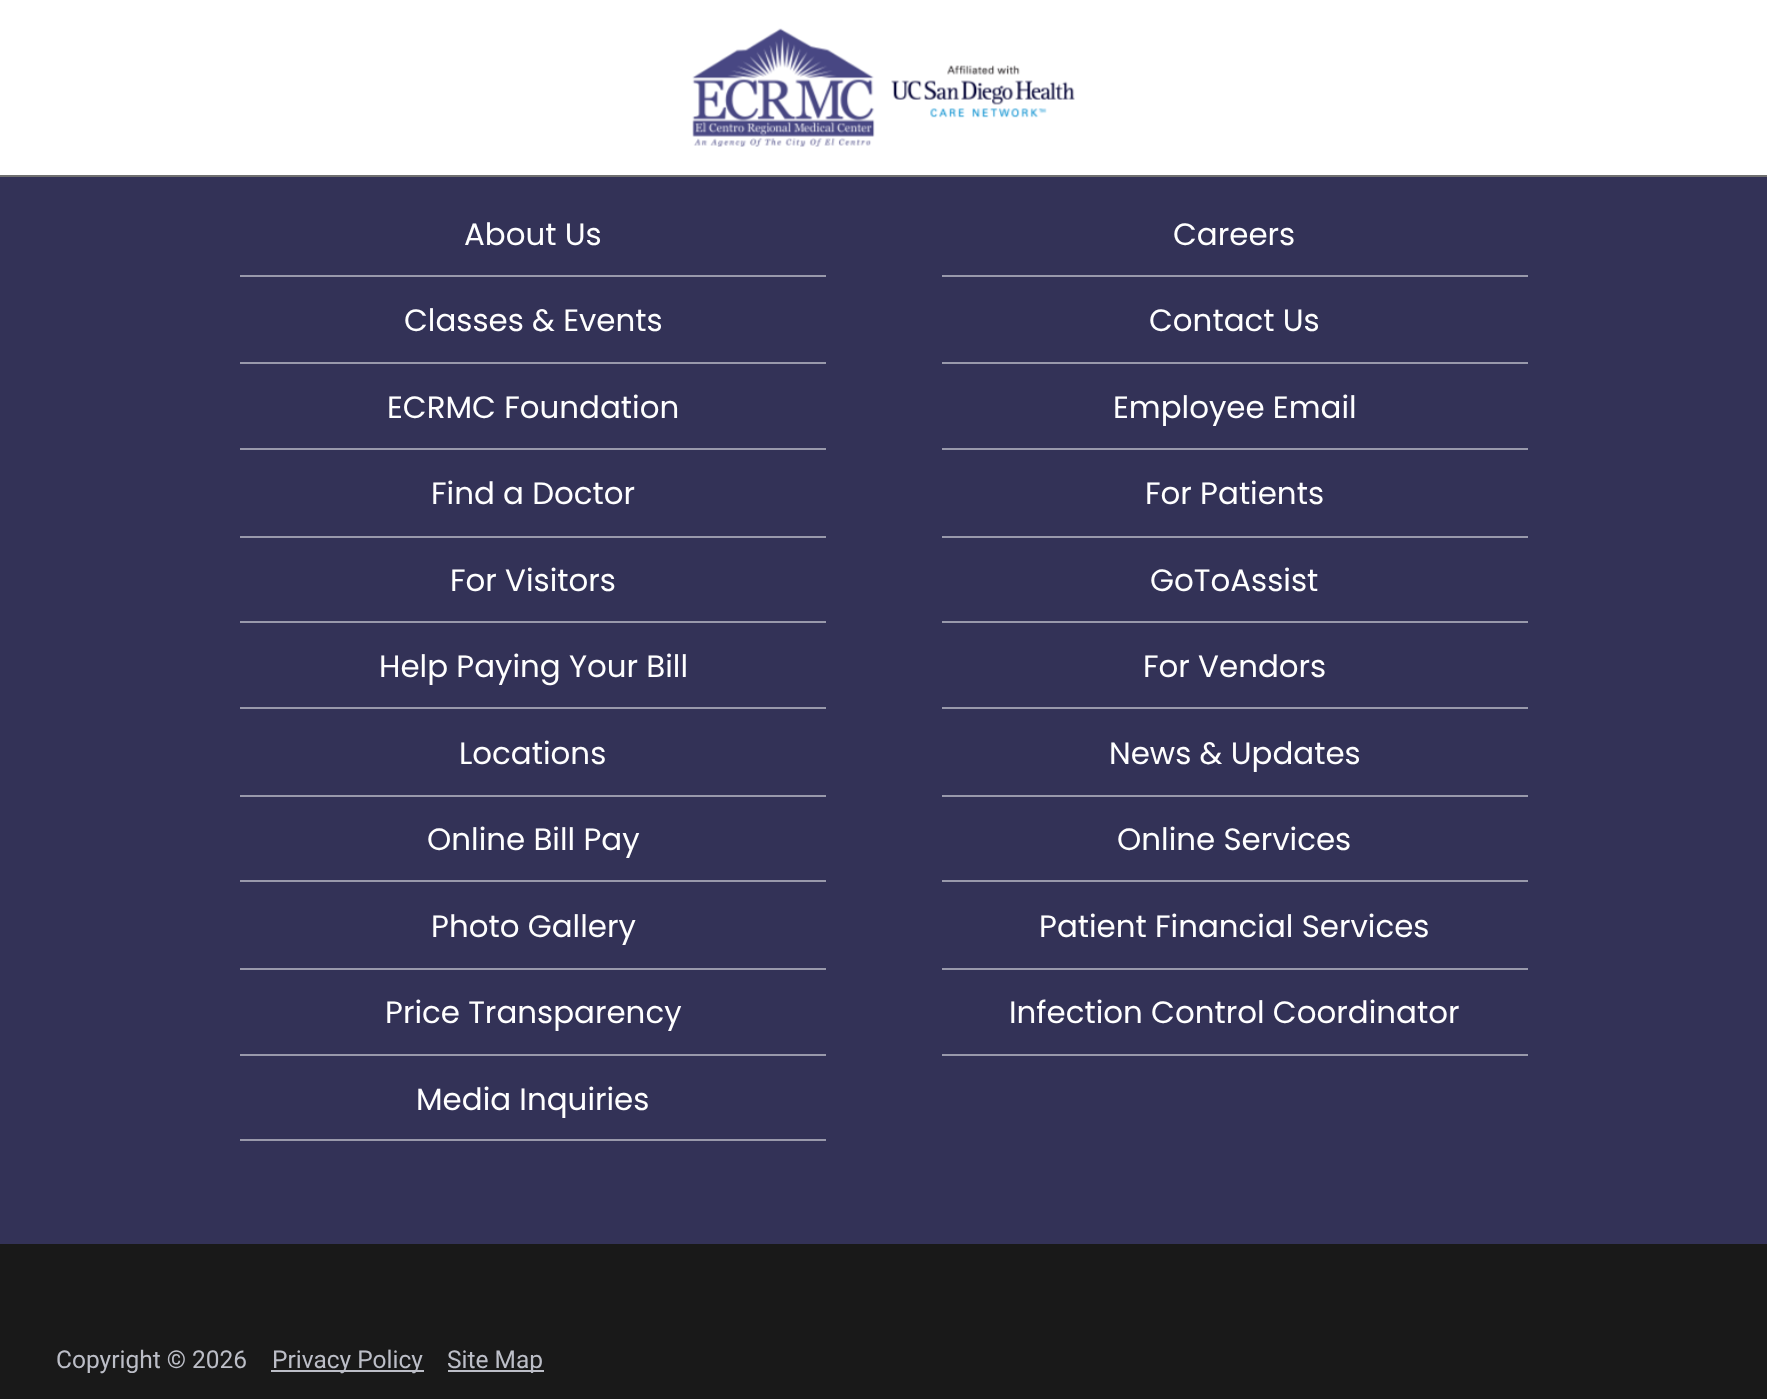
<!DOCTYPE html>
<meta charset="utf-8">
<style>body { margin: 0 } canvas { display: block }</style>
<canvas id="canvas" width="1767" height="1399"></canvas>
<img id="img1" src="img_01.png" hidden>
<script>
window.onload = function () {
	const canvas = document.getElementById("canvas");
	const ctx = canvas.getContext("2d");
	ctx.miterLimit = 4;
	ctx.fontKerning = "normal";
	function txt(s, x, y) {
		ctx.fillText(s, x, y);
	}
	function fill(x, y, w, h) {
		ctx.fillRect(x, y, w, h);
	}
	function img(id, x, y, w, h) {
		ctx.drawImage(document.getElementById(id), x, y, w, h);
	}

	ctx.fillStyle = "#333257";
	fill(0, 0, 1767, 1399);
	ctx.fillStyle = "#FFFFFF";
	fill(0, 0, 1767, 175);
	ctx.fillStyle = "#707070";
	fill(0, 175, 1767, 2);
	img("img1", 692, 28, 383, 119);
	ctx.fillStyle = "#9999AB";
	fill(240, 275, 586, 2);
	fill(942, 275, 586, 2);
	fill(240, 362, 586, 2);
	fill(942, 362, 586, 2);
	fill(240, 448, 586, 2);
	fill(942, 448, 586, 2);
	fill(240, 536, 586, 2);
	fill(942, 536, 586, 2);
	fill(240, 621, 586, 2);
	fill(942, 621, 586, 2);
	fill(240, 707, 586, 2);
	fill(942, 707, 586, 2);
	fill(240, 795, 586, 2);
	fill(942, 795, 586, 2);
	fill(240, 880, 586, 2);
	fill(942, 880, 586, 2);
	fill(240, 968, 586, 2);
	fill(942, 968, 586, 2);
	fill(240, 1054, 586, 2);
	fill(942, 1054, 586, 2);
	fill(240, 1139, 586, 2);
	ctx.fillStyle = "#191919";
	fill(0, 1244, 1767, 155);
	ctx.fillStyle = "#BCBEC7";
	fill(271, 1370, 153, 2);
	fill(448, 1370, 96, 2);
	ctx.font = "30.9px Poppins";
	ctx.fillStyle = "#FFFFFF";
	txt("About Us", 464, 245);
	txt("Careers", 1173, 245);
	txt("Classes & Events", 404, 331);
	txt("Contact Us", 1149, 331);
	txt("ECRMC Foundation", 387, 418);
	txt("Employee Email", 1113, 418);
	txt("Find a Doctor", 431, 504);
	txt("For Patients", 1145, 504);
	txt("For Visitors", 450, 591);
	txt("GoToAssist", 1150, 591);
	txt("Help Paying Your Bill", 379, 677);
	txt("For Vendors", 1143, 677);
	txt("Locations", 459, 764);
	txt("News & Updates", 1109, 764);
	txt("Online Bill Pay", 427, 850);
	txt("Online Services", 1117, 850);
	txt("Photo Gallery", 431, 937);
	txt("Patient Financial Services", 1039, 937);
	txt("Price Transparency", 385, 1023);
	txt("Infection Control Coordinator", 1009, 1023);
	txt("Media Inquiries", 416, 1110);
	ctx.font = "24.5px Roboto";
	ctx.fillStyle = "#BCBEC7";
	txt("Copyright © 2026", 56, 1368);
	txt("Privacy Policy", 272, 1368);
	txt("Site Map", 447, 1368);
};
</script>
